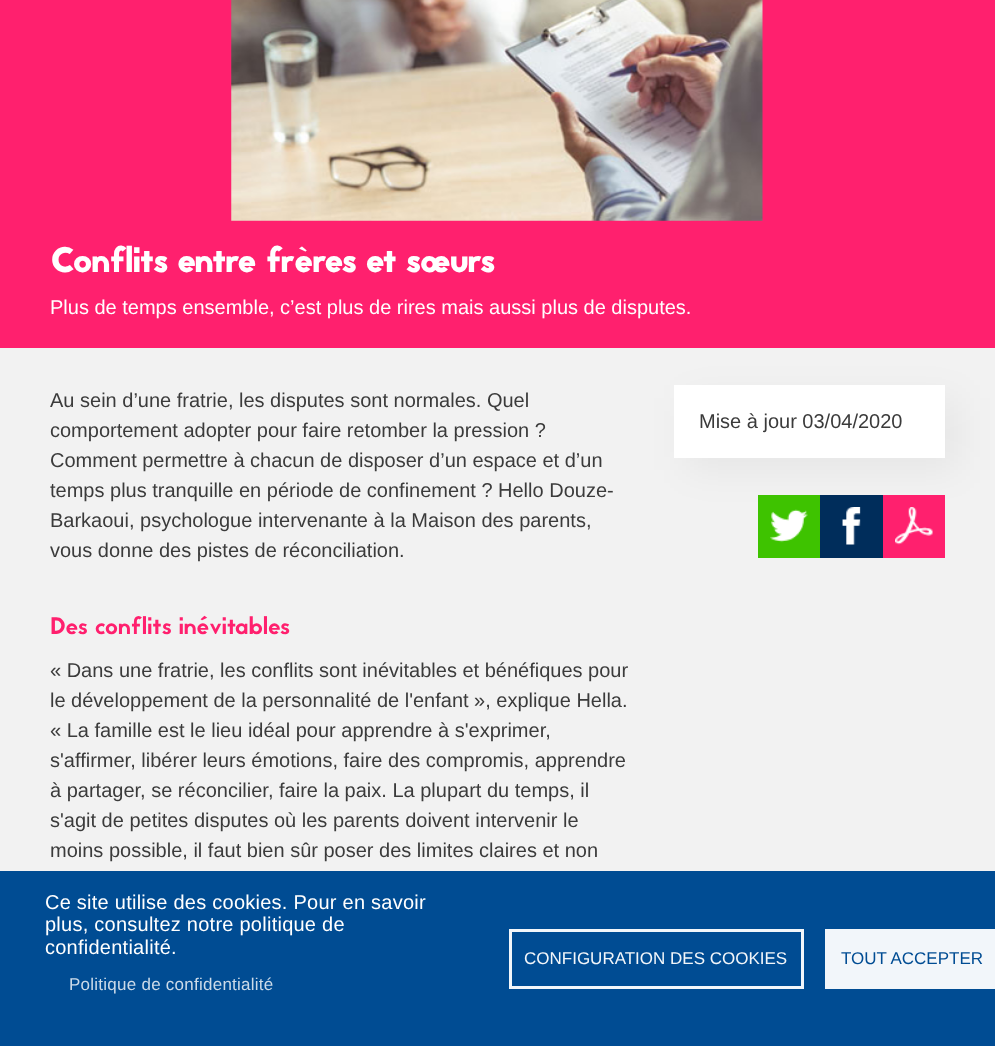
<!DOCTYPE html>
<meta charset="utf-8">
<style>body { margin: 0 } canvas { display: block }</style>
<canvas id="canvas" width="995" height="1046"></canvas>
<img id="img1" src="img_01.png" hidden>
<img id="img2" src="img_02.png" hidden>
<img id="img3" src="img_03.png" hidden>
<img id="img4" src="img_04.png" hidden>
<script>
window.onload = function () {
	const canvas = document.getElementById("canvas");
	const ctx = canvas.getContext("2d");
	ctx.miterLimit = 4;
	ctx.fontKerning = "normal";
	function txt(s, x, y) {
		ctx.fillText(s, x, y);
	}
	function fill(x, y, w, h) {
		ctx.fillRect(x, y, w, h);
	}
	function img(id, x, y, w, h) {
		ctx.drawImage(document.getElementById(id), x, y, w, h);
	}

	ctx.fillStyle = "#F2F2F2";
	fill(0, 0, 995, 1046);
	ctx.fillStyle = "rgba(0, 0, 0, 0.05)";
	ctx.filter = "blur(19px)";
	ctx.beginPath();
	ctx.rect(686, 398, 272, 72);
	ctx.fill();
	ctx.filter = "none";
	ctx.fillStyle = "#FF206E";
	fill(0, 0, 995, 348);
	img("img1", 231, 0, 532, 221);
	ctx.fillStyle = "#FFFFFF";
	fill(674, 385, 271, 73);
	ctx.fillStyle = "#3EC300";
	fill(758, 495, 62, 63);
	img("img2", 770, 509, 38, 34);
	ctx.fillStyle = "#002D5B";
	fill(820, 495, 63, 63);
	img("img3", 842, 507, 19, 38);
	ctx.fillStyle = "#FF206E";
	fill(883, 495, 62, 63);
	img("img4", 895, 507, 38, 38);
	ctx.fillStyle = "#004C93";
	fill(0, 871, 995, 175);
	ctx.strokeStyle = "#F2F6FA";
	ctx.lineWidth = 3;
	ctx.strokeRect(510.5, 930.5, 292, 57);
	ctx.fillStyle = "#F2F6FA";
	fill(825, 929, 170, 60);
	ctx.font = "bold 34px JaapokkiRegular";
	ctx.fillStyle = "#FFFFFF";
	txt("Conflits entre frères et sœurs", 50, 272);
	ctx.font = "20px Liberation Sans";
	txt("Plus de temps ensemble, c’est plus de rires mais aussi plus de disputes.", 50, 314);
	ctx.fillStyle = "#3B3B3B";
	txt("Au sein d’une fratrie, les disputes sont normales. Quel", 50, 407);
	txt("comportement adopter pour faire retomber la pression ?", 50, 437);
	txt("Comment permettre à chacun de disposer d’un espace et d’un", 50, 467);
	txt("temps plus tranquille en période de confinement ? Hello Douze-", 50, 497);
	txt("Barkaoui, psychologue intervenante à la Maison des parents,", 50, 527);
	txt("vous donne des pistes de réconciliation.", 50, 557);
	ctx.font = "24px JaapokkiRegular";
	ctx.fillStyle = "#FF206E";
	txt("Des conflits inévitables", 50, 634);
	ctx.font = "20px Liberation Sans";
	ctx.fillStyle = "#3B3B3B";
	txt("« Dans une fratrie, les conflits sont inévitables et bénéfiques pour", 50, 677);
	txt("le développement de la personnalité de l'enfant », explique Hella.", 50, 707);
	txt("« La famille est le lieu idéal pour apprendre à s'exprimer,", 50, 737);
	txt("s'affirmer, libérer leurs émotions, faire des compromis, apprendre", 50, 767);
	txt("à partager, se réconcilier, faire la paix. La plupart du temps, il", 50, 797);
	txt("s'agit de petites disputes où les parents doivent intervenir le", 50, 827);
	txt("moins possible, il faut bien sûr poser des limites claires et non", 50, 857);
	txt("Mise à jour 03/04/2020", 699, 428);
	ctx.letterSpacing = "0.25px";
	ctx.fillStyle = "#FFFFFF";
	txt("Ce site utilise des cookies. Pour en savoir", 45, 909);
	txt("plus, consultez notre politique de", 45, 931);
	txt("confidentialité.", 45, 954);
	ctx.font = "17px Liberation Sans";
	ctx.fillStyle = "#CCDBE9";
	txt("Politique de confidentialité", 69, 990);
	ctx.letterSpacing = "0px";
	ctx.fillStyle = "#F2F6FA";
	txt("CONFIGURATION DES COOKIES", 524, 964);
	ctx.fillStyle = "#004C93";
	txt("TOUT ACCEPTER", 841, 964);
};
</script>
